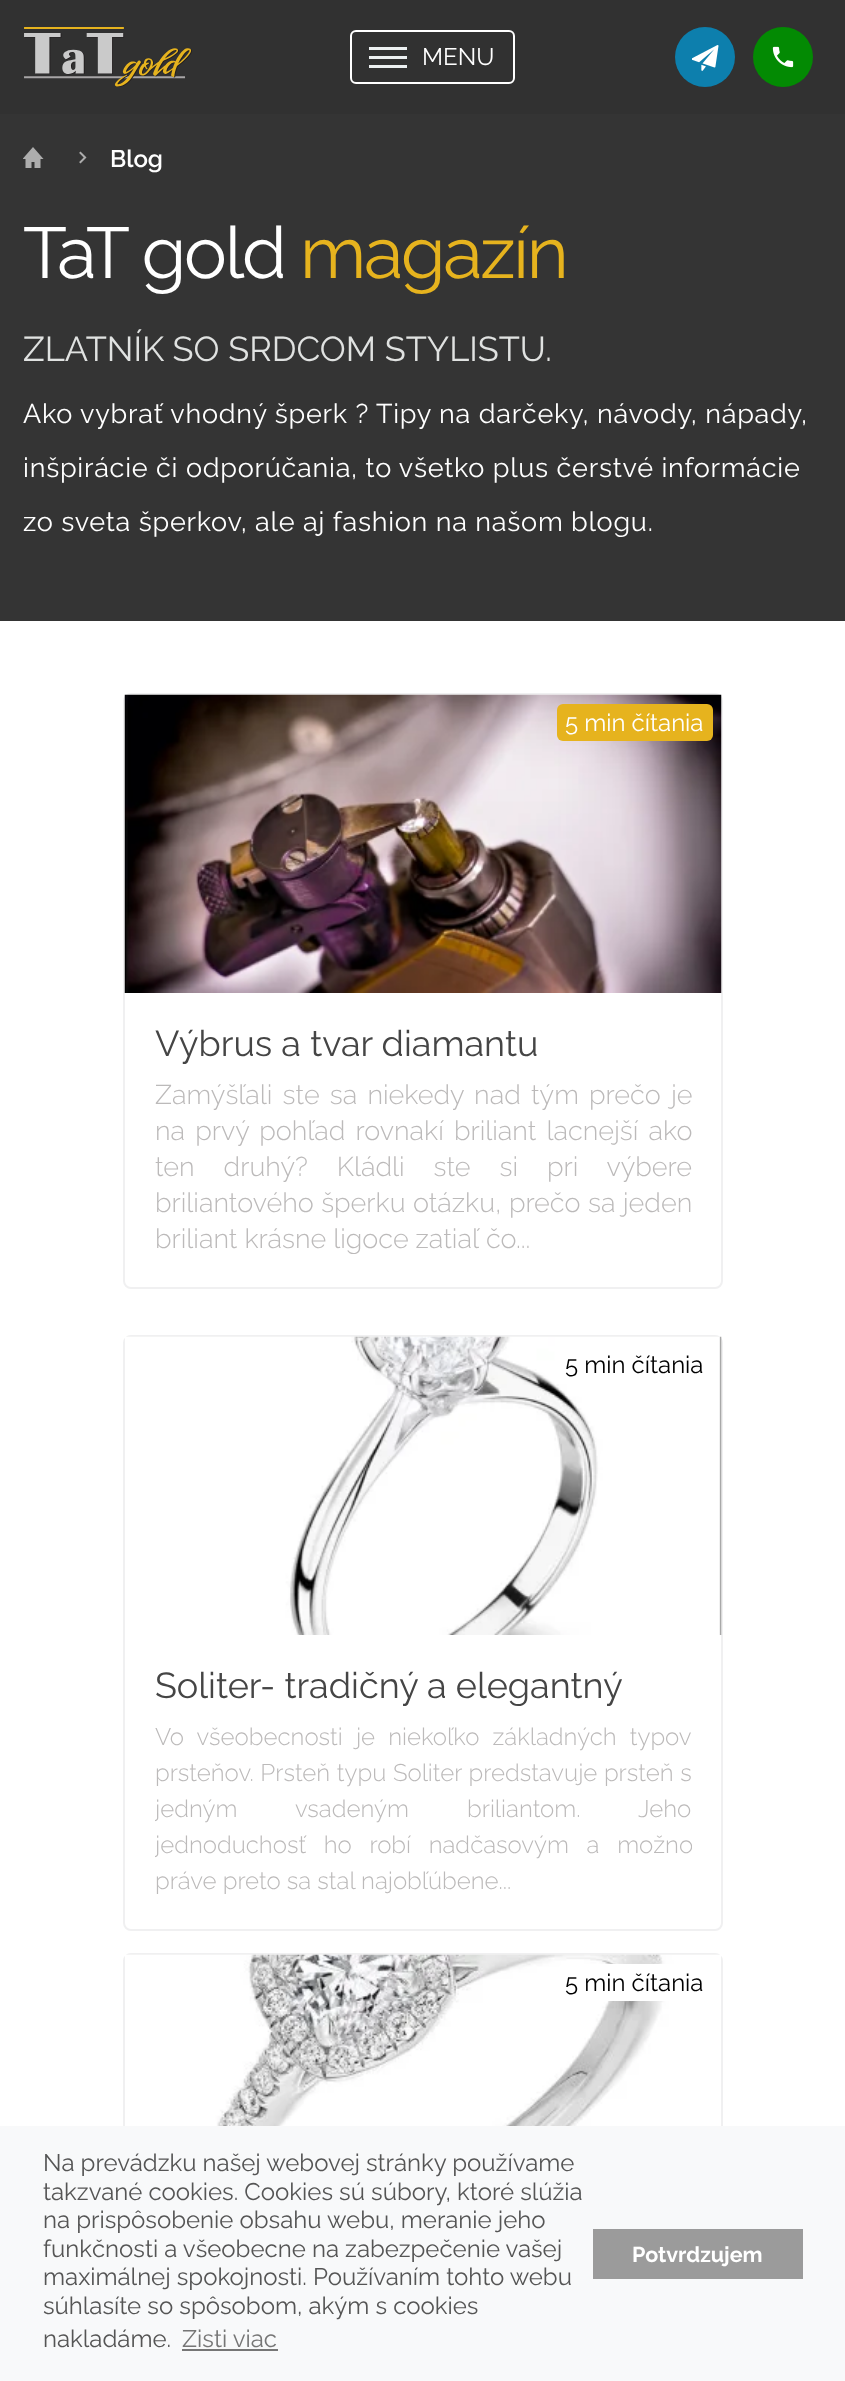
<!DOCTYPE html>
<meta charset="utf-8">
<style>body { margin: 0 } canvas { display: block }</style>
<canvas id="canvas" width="845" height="2381"></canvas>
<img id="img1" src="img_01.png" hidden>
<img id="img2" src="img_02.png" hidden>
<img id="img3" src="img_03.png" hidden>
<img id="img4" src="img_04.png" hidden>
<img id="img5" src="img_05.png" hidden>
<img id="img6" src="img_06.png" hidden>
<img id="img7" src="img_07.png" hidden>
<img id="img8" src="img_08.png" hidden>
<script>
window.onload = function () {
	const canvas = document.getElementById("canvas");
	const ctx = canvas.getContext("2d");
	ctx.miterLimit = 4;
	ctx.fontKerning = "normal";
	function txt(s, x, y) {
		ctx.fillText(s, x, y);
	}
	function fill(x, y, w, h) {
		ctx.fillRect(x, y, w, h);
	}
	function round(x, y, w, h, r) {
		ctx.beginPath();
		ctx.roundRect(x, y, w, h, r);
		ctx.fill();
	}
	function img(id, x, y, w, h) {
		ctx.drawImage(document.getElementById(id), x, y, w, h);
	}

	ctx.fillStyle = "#FFFFFF";
	fill(0, 0, 845, 2381);
	ctx.fillStyle = "#313131";
	fill(0, 0, 845, 114);
	img("img1", 24, 27, 168, 60);
	ctx.beginPath();
	ctx.roundRect(351, 31, 163, 52, 5);
	ctx.strokeStyle = "#FFFFFF";
	ctx.lineWidth = 2;
	ctx.stroke();
	ctx.fillStyle = "#ECF0F1";
	fill(369, 47, 38, 3);
	fill(369, 56, 38, 3);
	fill(369, 65, 38, 3);
	ctx.fillStyle = "#0D7FAD";
	ctx.beginPath();
	ctx.arc(705, 57, 30, 0, Math.PI * 2);
	ctx.fill();
	img("img2", 692, 45, 27, 26);
	ctx.fillStyle = "#038A03";
	ctx.beginPath();
	ctx.arc(783, 57, 30, 0, Math.PI * 2);
	ctx.fill();
	img("img3", 772, 46, 22, 22);
	ctx.fillStyle = "#343434";
	fill(0, 114, 845, 507);
	img("img4", 23, 147, 21, 21);
	img("img5", 79, 151, 8, 13);
	ctx.beginPath();
	ctx.roundRect(124, 694, 598, 594, 7);
	ctx.strokeStyle = "#F0F0F1";
	ctx.stroke();
	img("img6", 124, 694, 598, 299);
	ctx.fillStyle = "#E6B31E";
	round(557, 704, 156, 37, 6);
	ctx.beginPath();
	ctx.roundRect(124, 1336, 598, 594, 7);
	ctx.stroke();
	img("img7", 125, 1336, 597, 299);
	ctx.beginPath();
	ctx.roundRect(124, 1954, 598, 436, 7);
	ctx.stroke();
	img("img8", 125, 1954, 596, 172);
	ctx.fillStyle = "#FFFFFF";
	round(557, 1964, 156, 37, 6);
	ctx.fillStyle = "#F8F9FA";
	fill(0, 2126, 845, 255);
	ctx.fillStyle = "#767676";
	fill(182, 2349, 96, 2);
	ctx.fillStyle = "#9B9B9B";
	fill(593, 2229, 210, 50);
	ctx.font = "24px Raleway";
	ctx.fillStyle = "#FFFFFF";
	txt("MENU", 422, 65);
	ctx.font = "600 24px Raleway";
	txt("Blog", 110, 167);
	ctx.letterSpacing = "-2.25px";
	ctx.font = "72px Raleway";
	txt("TaT gold", 23, 278);
	ctx.fillStyle = "#E6B31E";
	txt("magazín", 300, 278);
	ctx.letterSpacing = "0px";
	ctx.font = "34.5px Raleway";
	ctx.fillStyle = "#E0E2E1";
	txt("ZLATNÍK SO SRDCOM STYLISTU.", 23, 361);
	ctx.letterSpacing = "0.75px";
	ctx.font = "27px Raleway";
	ctx.fillStyle = "#FFFFFF";
	txt("Ako vybrať vhodný šperk ? Tipy na darčeky, návody, nápady,", 23, 423);
	txt("inšpirácie či odporúčania, to všetko plus čerstvé informácie", 23, 477);
	txt("zo sveta šperkov, ale aj fashion na našom blogu.", 23, 531);
	ctx.letterSpacing = "0px";
	ctx.font = "24px Raleway";
	txt("5 min čítania", 565, 731);
	ctx.font = "36px Raleway";
	ctx.fillStyle = "#454545";
	txt("Výbrus a tvar diamantu", 155, 1056);
	ctx.wordSpacing = "3.25px";
	ctx.font = "300 27px Raleway";
	ctx.fillStyle = "#BCBABA";
	txt("Zamýšľali ste sa niekedy nad tým prečo je", 155, 1104);
	txt("na prvý pohľad rovnakí briliant lacnejší ako", 155, 1140);
	ctx.wordSpacing = "22px";
	txt("ten druhý? Kládli ste si pri výbere", 155, 1176);
	ctx.wordSpacing = "0.5px";
	txt("briliantového šperku otázku, prečo sa jeden", 155, 1212);
	ctx.wordSpacing = "0px";
	txt("briliant krásne ligoce zatiaľ čo...", 155, 1248);
	ctx.font = "24px Raleway";
	ctx.fillStyle = "#000000";
	txt("5 min čítania", 565, 1373);
	ctx.font = "36px Raleway";
	ctx.fillStyle = "#454545";
	txt("Soliter- tradičný a elegantný", 155, 1698);
	ctx.wordSpacing = "7px";
	ctx.font = "300 24px Raleway";
	ctx.fillStyle = "#BCBABA";
	txt("Vo všeobecnosti je niekoľko základných typov", 155, 1745);
	ctx.wordSpacing = "0.5px";
	txt("prsteňov. Prsteň typu Soliter predstavuje prsteň s", 155, 1781);
	ctx.save();
	ctx.beginPath();
	ctx.rect(155, 1719, 537, 180);
	ctx.clip();
	ctx.wordSpacing = "52px";
	txt("jedným vsadeným briliantom. Jeho", 155, 1817);
	ctx.wordSpacing = "11.5px";
	txt("jednoduchosť ho robí nadčasovým a možno", 155, 1853);
	ctx.restore();
	ctx.wordSpacing = "0px";
	txt("práve preto sa stal najobľúbene...", 155, 1889);
	ctx.font = "24px Raleway";
	ctx.fillStyle = "#000000";
	txt("5 min čítania", 565, 1991);
	ctx.fillStyle = "#555555";
	txt("Na prevádzku našej webovej stránky používame", 43, 2171);
	txt("takzvané cookies. Cookies sú súbory, ktoré slúžia", 43, 2200);
	txt("na prispôsobenie obsahu webu, meranie jeho", 43, 2228);
	txt("funkčnosti a všeobecne na zabezpečenie vašej", 43, 2257);
	txt("maximálnej spokojnosti. Používaním tohto webu", 43, 2285);
	txt("súhlasíte so spôsobom, akým s cookies", 43, 2314);
	txt("nakladáme.", 43, 2347);
	ctx.fillStyle = "#767676";
	txt("Zisti viac", 182, 2347);
	ctx.font = "bold 21.5px Raleway";
	ctx.fillStyle = "#FFFFFF";
	txt("Potvrdzujem", 632, 2262);
};
</script>
